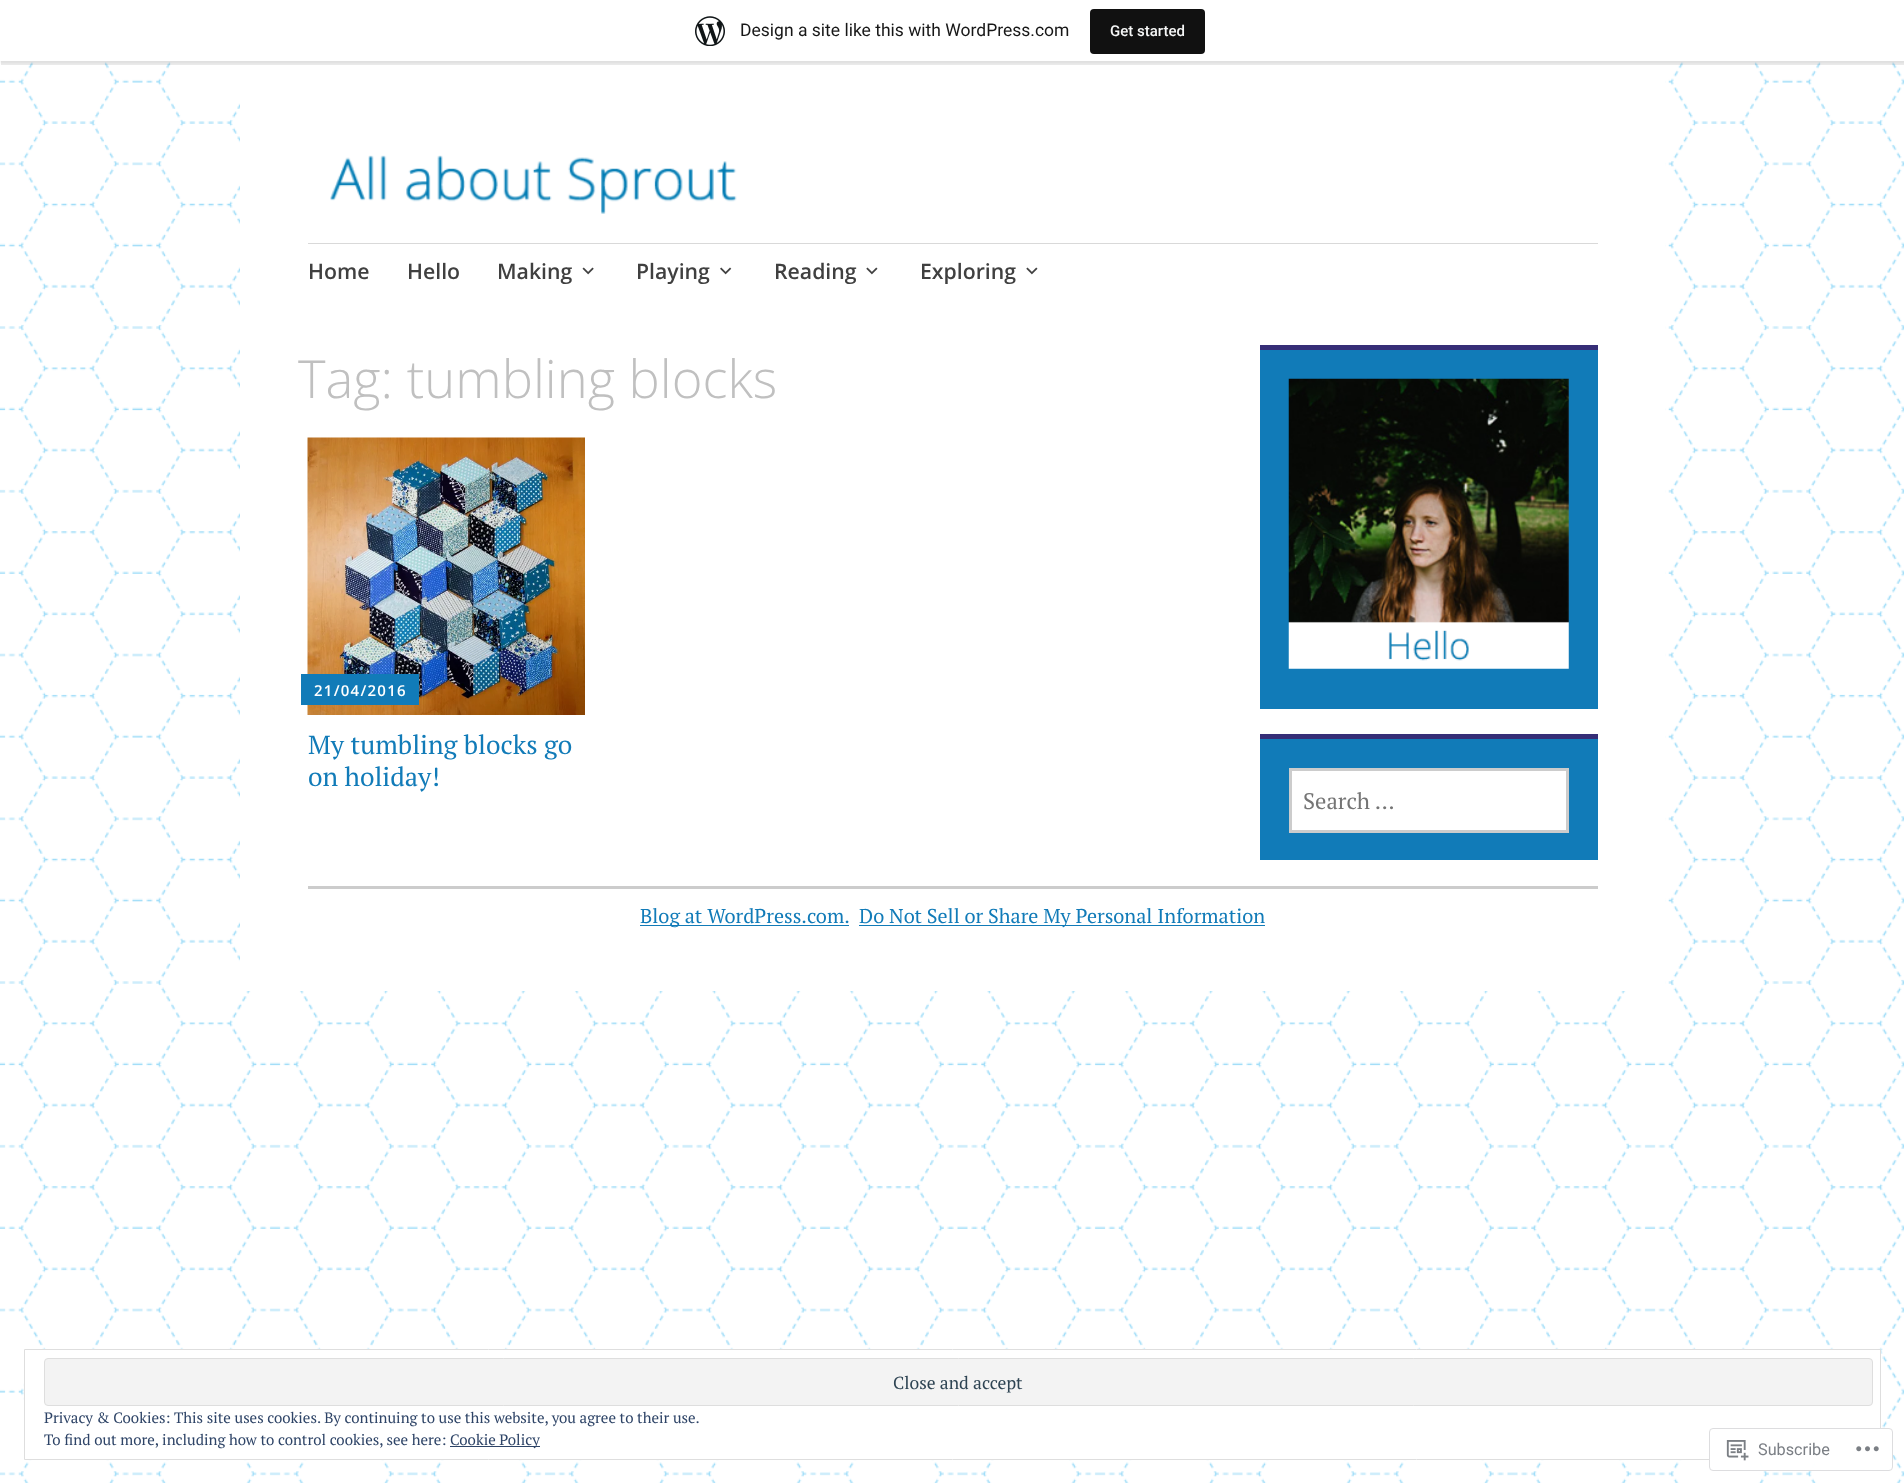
<!DOCTYPE html>
<meta charset="utf-8">
<style>body { margin: 0 } canvas { display: block }</style>
<canvas id="canvas" width="1904" height="1483"></canvas>
<img id="img1" src="img_01.png" hidden>
<img id="img2" src="img_02.png" hidden>
<img id="img3" src="img_03.png" hidden>
<img id="img4" src="img_04.png" hidden>
<img id="img5" src="img_05.png" hidden>
<img id="img6" src="img_06.png" hidden>
<img id="img7" src="img_07.png" hidden>
<img id="img8" src="img_08.png" hidden>
<img id="img9" src="img_09.png" hidden>
<img id="img10" src="img_10.png" hidden>
<script>
window.onload = function () {
	const canvas = document.getElementById("canvas");
	const ctx = canvas.getContext("2d");
	ctx.miterLimit = 4;
	ctx.fontKerning = "normal";
	function txt(s, x, y) {
		ctx.fillText(s, x, y);
	}
	function fill(x, y, w, h) {
		ctx.fillRect(x, y, w, h);
	}
	function round(x, y, w, h, r) {
		ctx.beginPath();
		ctx.roundRect(x, y, w, h, r);
		ctx.fill();
	}
	function img(id, x, y, w, h) {
		ctx.drawImage(document.getElementById(id), x, y, w, h);
	}

	ctx.fillStyle = "#FFFFFF";
	fill(0, 0, 1904, 1483);
	img("img1", 0, 62, 1904, 1421);
	fill(240, 62, 1425, 929);
	ctx.fillStyle = "rgba(0, 0, 0, 0.05)";
	ctx.filter = "blur(1px)";
	ctx.beginPath();
	ctx.rect(0, 1, 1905, 62);
	ctx.fill();
	ctx.filter = "none";
	ctx.fillStyle = "rgba(0, 0, 0, 0.08)";
	ctx.beginPath();
	ctx.moveTo(1, 61);
	ctx.lineTo(1, 65);
	ctx.lineTo(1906, 65);
	ctx.lineTo(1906, 4);
	ctx.lineTo(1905, 4);
	ctx.lineTo(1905, 61);
	ctx.closePath();
	ctx.fill();
	ctx.fillStyle = "#FFFFFF";
	fill(0, 0, 1904, 61);
	img("img2", 695, 16, 30, 30);
	ctx.fillStyle = "#111111";
	round(1090, 9, 115, 45, 4);
	img("img3", 330, 155, 407, 59);
	ctx.fillStyle = "#D9D9D9";
	fill(308, 243, 1290, 1);
	img("img4", 582, 267, 12, 8);
	img("img5", 720, 267, 12, 8);
	img("img6", 866, 267, 12, 8);
	img("img6", 1026, 267, 12, 8);
	img("img7", 307, 437, 278, 278);
	ctx.fillStyle = "#117BB8";
	fill(301, 674, 118, 31);
	fill(1260, 350, 338, 359);
	ctx.fillStyle = "#362E77";
	fill(1260, 345, 338, 5);
	img("img8", 1288, 378, 281, 291);
	ctx.fillStyle = "#117BB8";
	fill(1260, 739, 338, 121);
	ctx.fillStyle = "#362E77";
	fill(1260, 734, 338, 5);
	ctx.fillStyle = "#FFFFFF";
	ctx.beginPath();
	ctx.rect(1290.5, 769.5, 277, 62);
	ctx.fill();
	ctx.strokeStyle = "#CCCCCC";
	ctx.lineWidth = 3;
	ctx.stroke();
	ctx.fillStyle = "#CCCCCC";
	fill(308, 886, 1290, 3);
	ctx.fillStyle = "#117BB8";
	fill(640, 925, 209, 1);
	fill(859, 925, 406, 1);
	ctx.fillStyle = "#FFFFFF";
	ctx.beginPath();
	ctx.rect(24.5, 1349.5, 1856, 110);
	ctx.fill();
	ctx.strokeStyle = "#DEDEDE";
	ctx.lineWidth = 1;
	ctx.stroke();
	ctx.fillStyle = "#F3F3F3";
	ctx.beginPath();
	ctx.roundRect(44.5, 1358.5, 1828, 47, 3.5);
	ctx.fill();
	ctx.stroke();
	ctx.fillStyle = "#2E4467";
	fill(450, 1446, 90, 1);
	ctx.fillStyle = "rgba(255, 255, 255, 0.98)";
	ctx.beginPath();
	ctx.roundRect(1709.5, 1428.5, 183, 42, 3.5);
	ctx.fill();
	ctx.strokeStyle = "#DDDDDF";
	ctx.stroke();
	img("img9", 1726, 1440, 23, 21);
	img("img10", 1856, 1446, 23, 6);
	ctx.font = "17.5px Roboto";
	ctx.fillStyle = "#171717";
	txt("Design a site like this with WordPress.com", 740, 36);
	ctx.font = "500 15px Roboto";
	ctx.fillStyle = "#F6F7F7";
	txt("Get started", 1110, 36);
	ctx.font = "600 21.25px Open Sans";
	ctx.fillStyle = "#404040";
	txt("Home", 308, 279);
	txt("Hello", 407, 279);
	txt("Making", 497, 279);
	txt("Playing", 636, 279);
	txt("Reading", 774, 279);
	txt("Exploring", 920, 279);
	ctx.font = "300 52.5px Open Sans";
	ctx.fillStyle = "#C0C0C0";
	txt("Tag: tumbling blocks", 298, 398);
	ctx.letterSpacing = "1.25px";
	ctx.font = "600 15px Open Sans";
	ctx.fillStyle = "#FFFFFF";
	txt("21/04/2016", 314, 696);
	ctx.letterSpacing = "0px";
	ctx.font = "26.25px PT Serif";
	ctx.fillStyle = "#117BB8";
	txt("My tumbling blocks go", 308, 754);
	txt("on holiday!", 308, 786);
	ctx.font = "22.5px PT Serif";
	ctx.fillStyle = "#757575";
	txt("Search …", 1303, 809);
	ctx.font = "20px PT Serif";
	ctx.fillStyle = "#117BB8";
	txt("Blog at WordPress.com.", 640, 923);
	txt("Do Not Sell or Share My Personal Information", 859, 923);
	ctx.font = "17.5px PT Serif";
	ctx.fillStyle = "#2E4453";
	txt("Close and accept", 893, 1389);
	ctx.font = "15px PT Serif";
	ctx.fillStyle = "#2E4467";
	txt("Privacy & Cookies: This site uses cookies. By continuing to use this website, you agree to their use.", 44, 1423);
	txt("To find out more, including how to control cookies, see here:", 44, 1445);
	txt("Cookie Policy", 450, 1445);
	ctx.font = "16.25px Roboto";
	ctx.fillStyle = "#7B7F85";
	txt("Subscribe", 1758, 1455);
};
</script>
